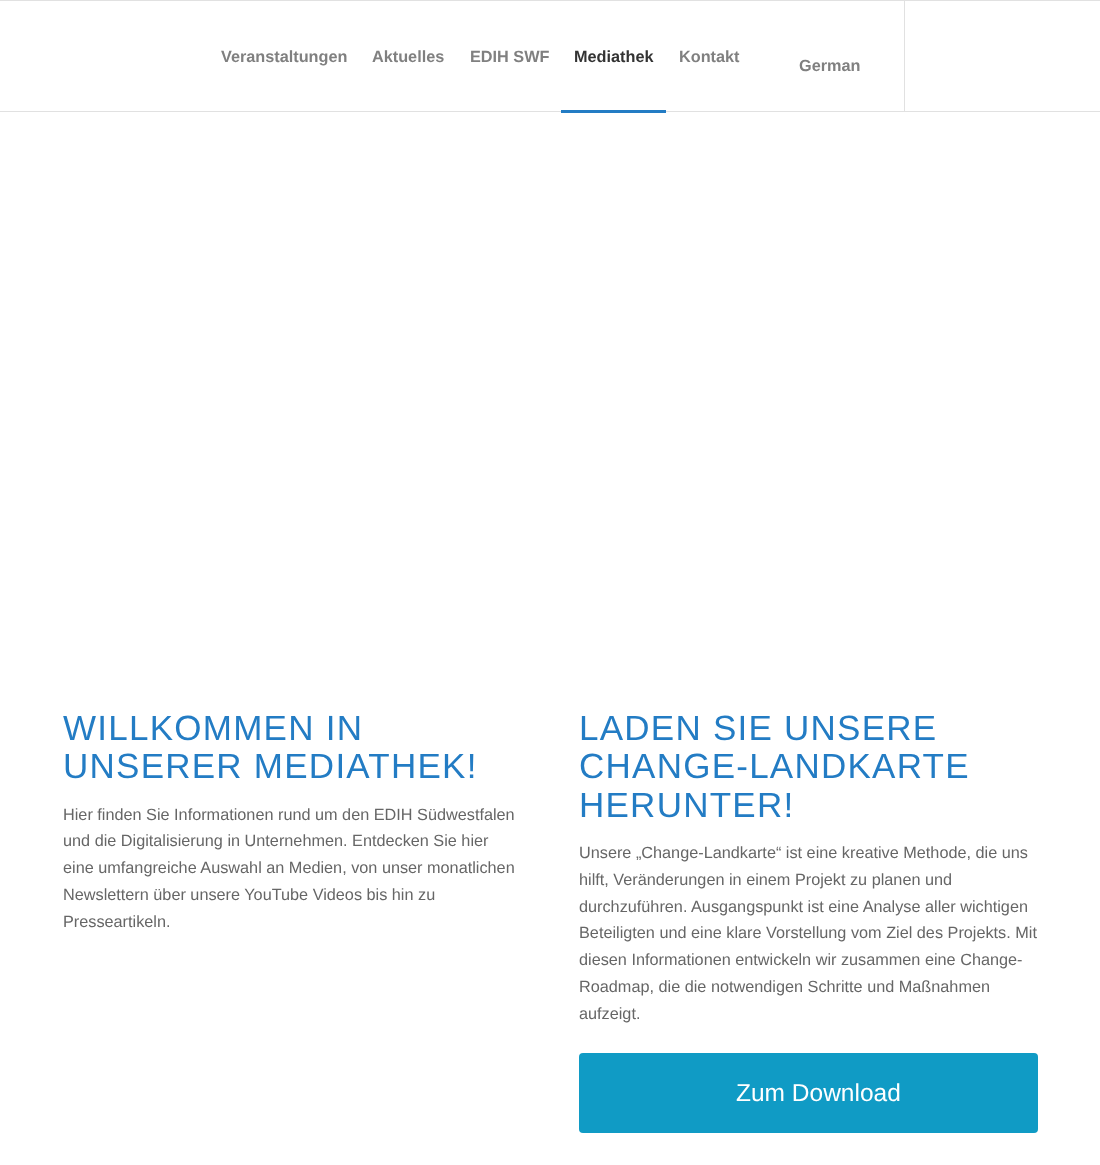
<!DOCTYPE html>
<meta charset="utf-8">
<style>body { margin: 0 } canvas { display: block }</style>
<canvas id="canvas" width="1100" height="1165"></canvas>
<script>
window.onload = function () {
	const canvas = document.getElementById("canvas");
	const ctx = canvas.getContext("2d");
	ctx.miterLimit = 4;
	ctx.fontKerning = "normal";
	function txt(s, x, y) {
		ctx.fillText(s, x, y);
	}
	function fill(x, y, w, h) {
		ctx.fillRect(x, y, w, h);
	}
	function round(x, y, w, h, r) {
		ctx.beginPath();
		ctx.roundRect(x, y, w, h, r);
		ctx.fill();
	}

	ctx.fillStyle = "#FFFFFF";
	fill(0, 0, 1100, 1165);
	ctx.fillStyle = "#E1E1E1";
	fill(0, 0, 1100, 1);
	fill(0, 111, 1100, 1);
	fill(904, 1, 1, 110);
	ctx.fillStyle = "#237CC4";
	fill(561, 110, 105, 3);
	ctx.fillStyle = "#109BC5";
	round(579, 1053, 459, 80, 4);
	ctx.font = "bold 16.25px Liberation Sans";
	ctx.fillStyle = "#808080";
	txt("Veranstaltungen", 221, 62);
	txt("Aktuelles", 372, 62);
	txt("EDIH SWF", 470, 62);
	ctx.fillStyle = "#333333";
	txt("Mediathek", 574, 62);
	ctx.fillStyle = "#808080";
	txt("Kontakt", 679, 62);
	txt("German", 799, 71);
	ctx.letterSpacing = "1.25px";
	ctx.font = "35px Liberation Sans";
	ctx.fillStyle = "#237CC4";
	txt("WILLKOMMEN IN", 63, 740);
	txt("UNSERER MEDIATHEK!", 63, 778);
	ctx.letterSpacing = "0px";
	ctx.font = "16.25px Liberation Sans";
	ctx.fillStyle = "#666666";
	txt("Hier finden Sie Informationen rund um den EDIH Südwestfalen", 63, 820);
	txt("und die Digitalisierung in Unternehmen. Entdecken Sie hier", 63, 846);
	txt("eine umfangreiche Auswahl an Medien, von unser monatlichen", 63, 873);
	txt("Newslettern über unsere YouTube Videos bis hin zu", 63, 900);
	txt("Presseartikeln.", 63, 927);
	ctx.letterSpacing = "1.25px";
	ctx.font = "35px Liberation Sans";
	ctx.fillStyle = "#237CC4";
	txt("LADEN SIE UNSERE", 579, 740);
	txt("CHANGE-LANDKARTE", 579, 778);
	txt("HERUNTER!", 579, 817);
	ctx.letterSpacing = "0px";
	ctx.font = "16.25px Liberation Sans";
	ctx.fillStyle = "#666666";
	txt("Unsere „Change-Landkarte“ ist eine kreative Methode, die uns", 579, 858);
	txt("hilft, Veränderungen in einem Projekt zu planen und", 579, 885);
	txt("durchzuführen. Ausgangspunkt ist eine Analyse aller wichtigen", 579, 912);
	txt("Beteiligten und eine klare Vorstellung vom Ziel des Projekts. Mit", 579, 938);
	txt("diesen Informationen entwickeln wir zusammen eine Change-", 579, 965);
	txt("Roadmap, die die notwendigen Schritte und Maßnahmen", 579, 992);
	txt("aufzeigt.", 579, 1019);
	ctx.font = "24.5px Liberation Sans";
	ctx.fillStyle = "#FFFFFF";
	txt("Zum Download", 736, 1101);
};
</script>
